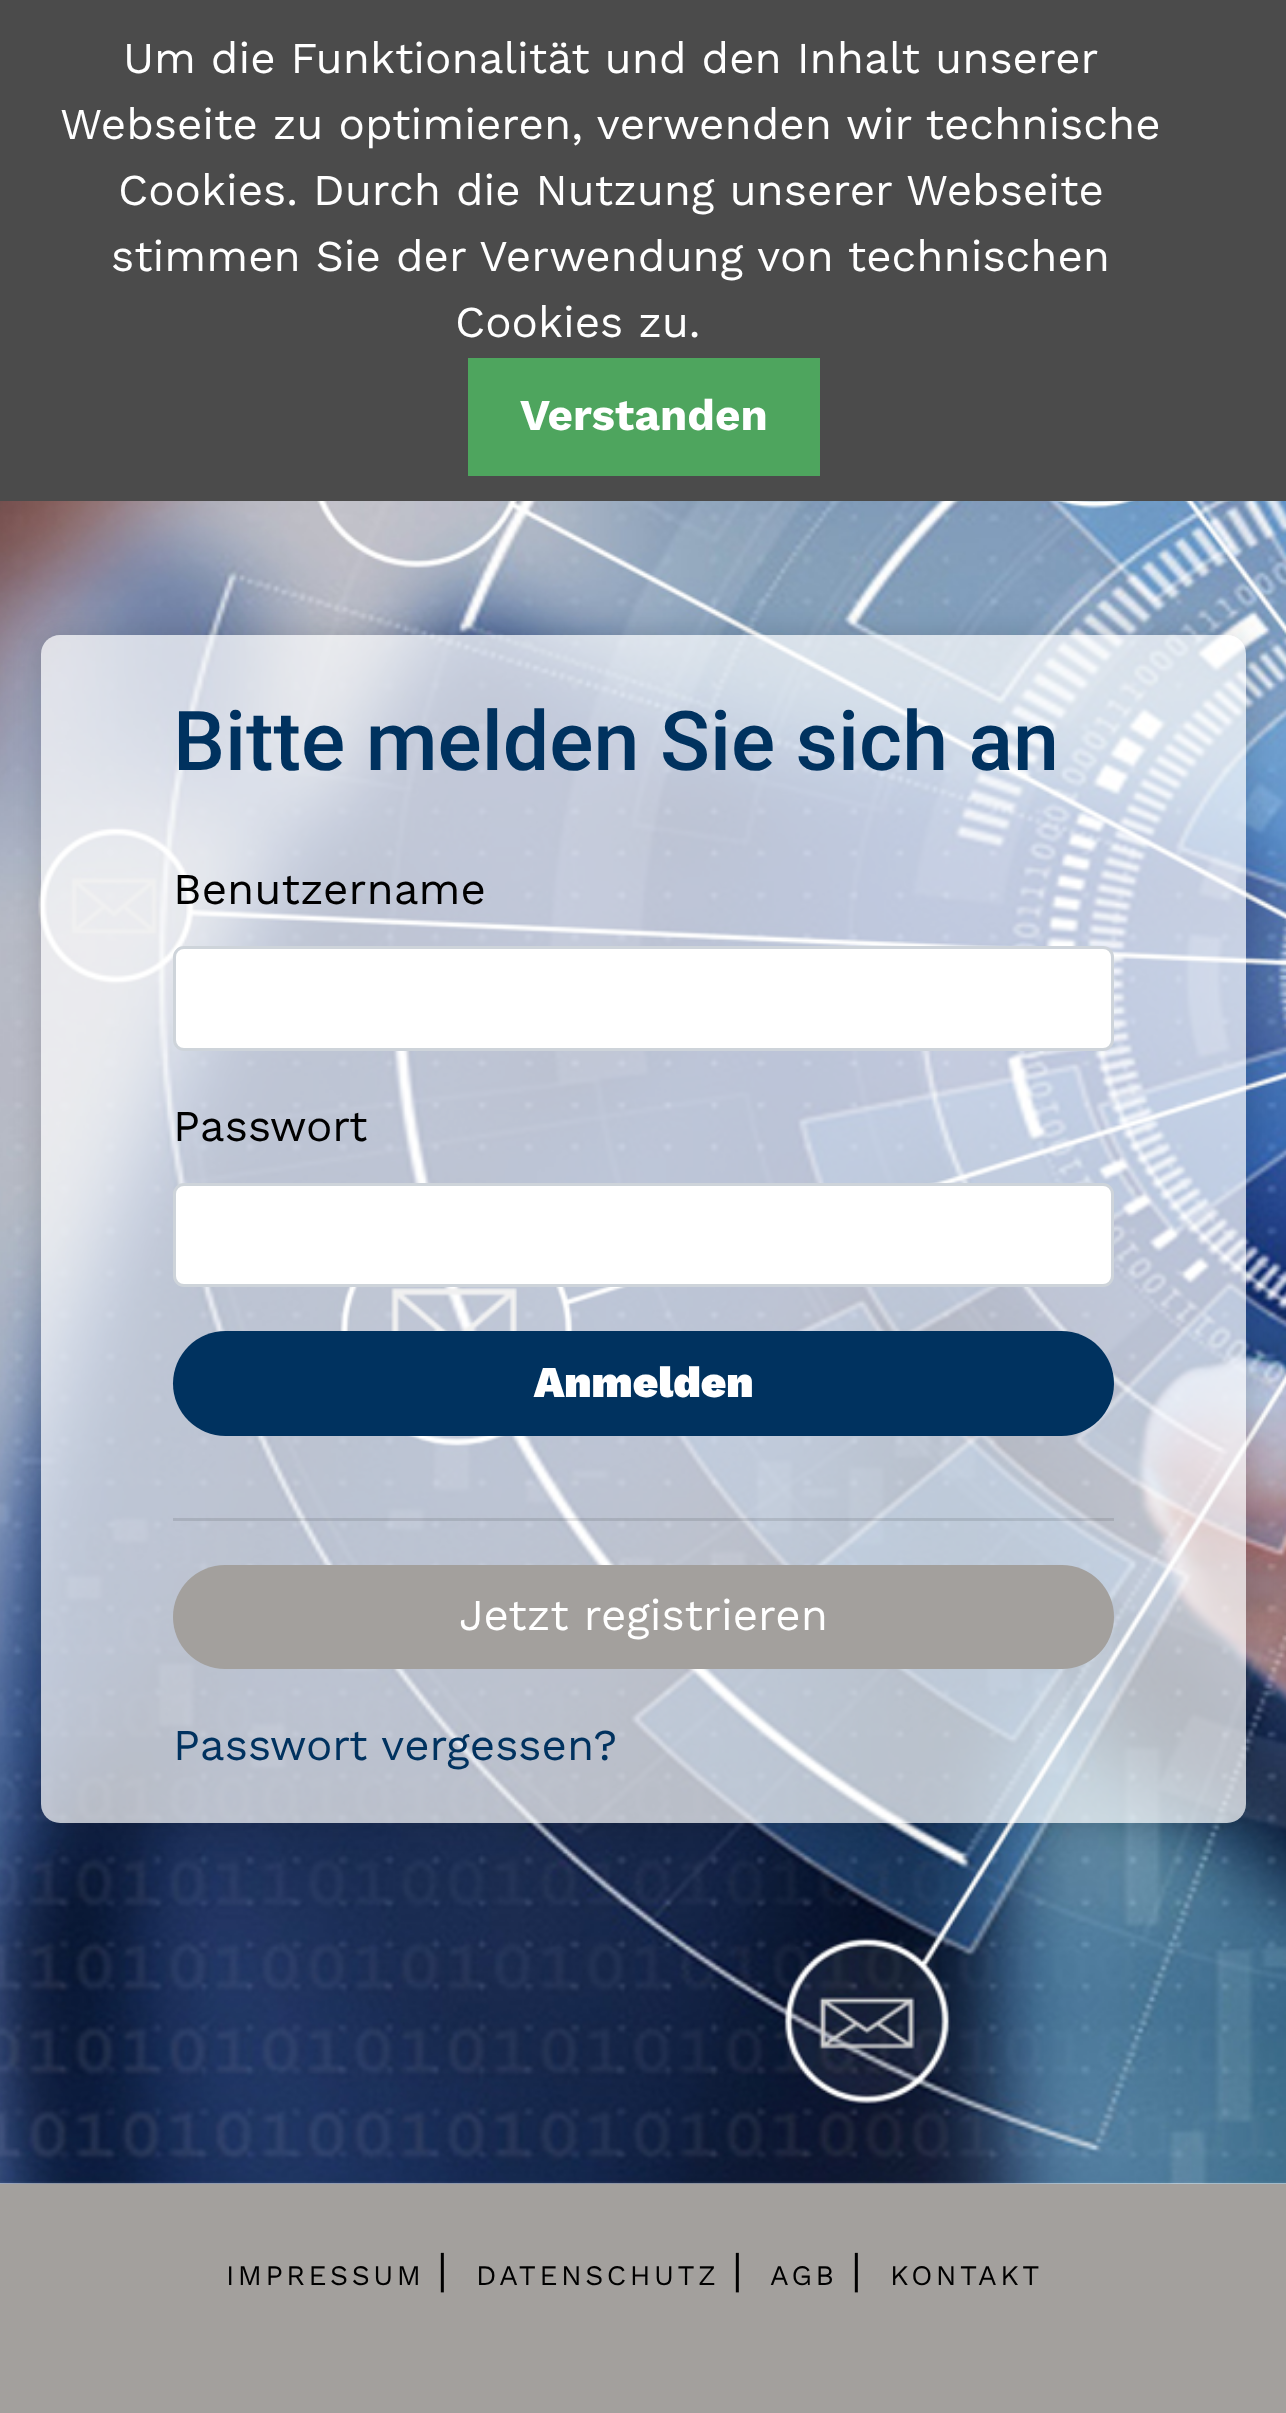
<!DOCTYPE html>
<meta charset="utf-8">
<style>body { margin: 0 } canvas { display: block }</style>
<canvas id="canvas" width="1286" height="2413"></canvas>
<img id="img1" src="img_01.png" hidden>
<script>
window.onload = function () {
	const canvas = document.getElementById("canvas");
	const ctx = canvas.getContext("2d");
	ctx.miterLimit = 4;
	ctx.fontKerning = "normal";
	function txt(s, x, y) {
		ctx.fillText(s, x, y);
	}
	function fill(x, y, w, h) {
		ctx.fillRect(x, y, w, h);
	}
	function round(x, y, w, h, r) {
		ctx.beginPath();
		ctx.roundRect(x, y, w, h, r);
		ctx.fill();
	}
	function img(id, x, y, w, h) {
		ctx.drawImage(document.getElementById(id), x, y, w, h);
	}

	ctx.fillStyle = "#FFFFFF";
	fill(0, 0, 1286, 2413);
	ctx.fillStyle = "#4B4B4B";
	fill(0, 0, 1286, 501);
	ctx.fillStyle = "#4EA55E";
	fill(468, 358, 352, 118);
	img("img1", 0, 501, 1286, 1683);
	ctx.save();
	ctx.beginPath();
	ctx.moveTo(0, 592);
	ctx.lineTo(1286, 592);
	ctx.lineTo(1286, 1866);
	ctx.lineTo(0, 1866);
	ctx.closePath();
	ctx.moveTo(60, 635);
	ctx.lineTo(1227, 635);
	ctx.bezierCurveTo(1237.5, 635, 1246, 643.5, 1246, 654);
	ctx.lineTo(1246, 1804);
	ctx.bezierCurveTo(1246, 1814.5, 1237.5, 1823, 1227, 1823);
	ctx.lineTo(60, 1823);
	ctx.bezierCurveTo(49.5, 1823, 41, 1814.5, 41, 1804);
	ctx.lineTo(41, 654);
	ctx.bezierCurveTo(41, 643.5, 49.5, 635, 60, 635);
	ctx.closePath();
	ctx.clip("evenodd");
	ctx.fillStyle = "rgba(0, 0, 0, 0.15)";
	ctx.filter = "blur(14px)";
	ctx.beginPath();
	ctx.roundRect(41, 635, 1205, 1188, 19);
	ctx.fill();
	ctx.filter = "none";
	ctx.restore();
	ctx.fillStyle = "rgba(255, 255, 255, 0.7)";
	round(41, 635, 1205, 1188, 19);
	ctx.fillStyle = "#FFFFFF";
	ctx.beginPath();
	ctx.roundRect(174.5, 947.5, 938, 102, 9.5);
	ctx.fill();
	ctx.strokeStyle = "#CED4DA";
	ctx.lineWidth = 3;
	ctx.stroke();
	ctx.beginPath();
	ctx.roundRect(174.5, 1184.5, 938, 101, 9.5);
	ctx.fill();
	ctx.stroke();
	ctx.fillStyle = "#00325F";
	round(173, 1331, 941, 105, 52.5);
	ctx.fillStyle = "rgba(0, 0, 0, 0.1)";
	fill(173, 1518, 941, 3);
	ctx.fillStyle = "#A3A09D";
	round(173, 1565, 941, 104, 52);
	fill(0, 2184, 1286, 229);
	ctx.font = "44px Work Sans";
	ctx.fillStyle = "#FFFFFF";
	txt("Um die Funktionalität und den Inhalt unserer", 123, 73);
	txt("Webseite zu optimieren, verwenden wir technische", 60, 139);
	txt("Cookies. Durch die Nutzung unserer Webseite", 118, 205);
	txt("stimmen Sie der Verwendung von technischen", 111, 271);
	txt("Cookies zu.", 455, 337);
	ctx.font = "bold 44px Work Sans";
	txt("Verstanden", 520, 430);
	ctx.font = "500 82.5px Roboto";
	ctx.fillStyle = "#00325F";
	txt("Bitte melden Sie sich an", 173, 770);
	ctx.font = "44px Work Sans";
	ctx.fillStyle = "#000000";
	txt("Benutzername", 173, 904);
	txt("Passwort", 173, 1141);
	ctx.font = "900 44px Work Sans";
	ctx.fillStyle = "#FFFFFF";
	txt("Anmelden", 534, 1397);
	ctx.font = "44px Work Sans";
	txt("Jetzt registrieren", 459, 1630);
	ctx.fillStyle = "#00325F";
	txt("Passwort vergessen?", 173, 1760);
	ctx.letterSpacing = "3.5px";
	ctx.font = "28.25px Work Sans";
	ctx.fillStyle = "#000000";
	txt("IMPRESSUM", 226, 2285);
	ctx.font = "44px Work Sans";
	txt("|", 437, 2285);
	ctx.font = "28.25px Work Sans";
	txt("DATENSCHUTZ", 476, 2285);
	ctx.font = "44px Work Sans";
	txt("|", 732, 2285);
	ctx.font = "28.25px Work Sans";
	txt("AGB", 770, 2285);
	ctx.font = "44px Work Sans";
	txt("|", 851, 2285);
	ctx.font = "28.25px Work Sans";
	txt("KONTAKT", 890, 2285);
};
</script>
